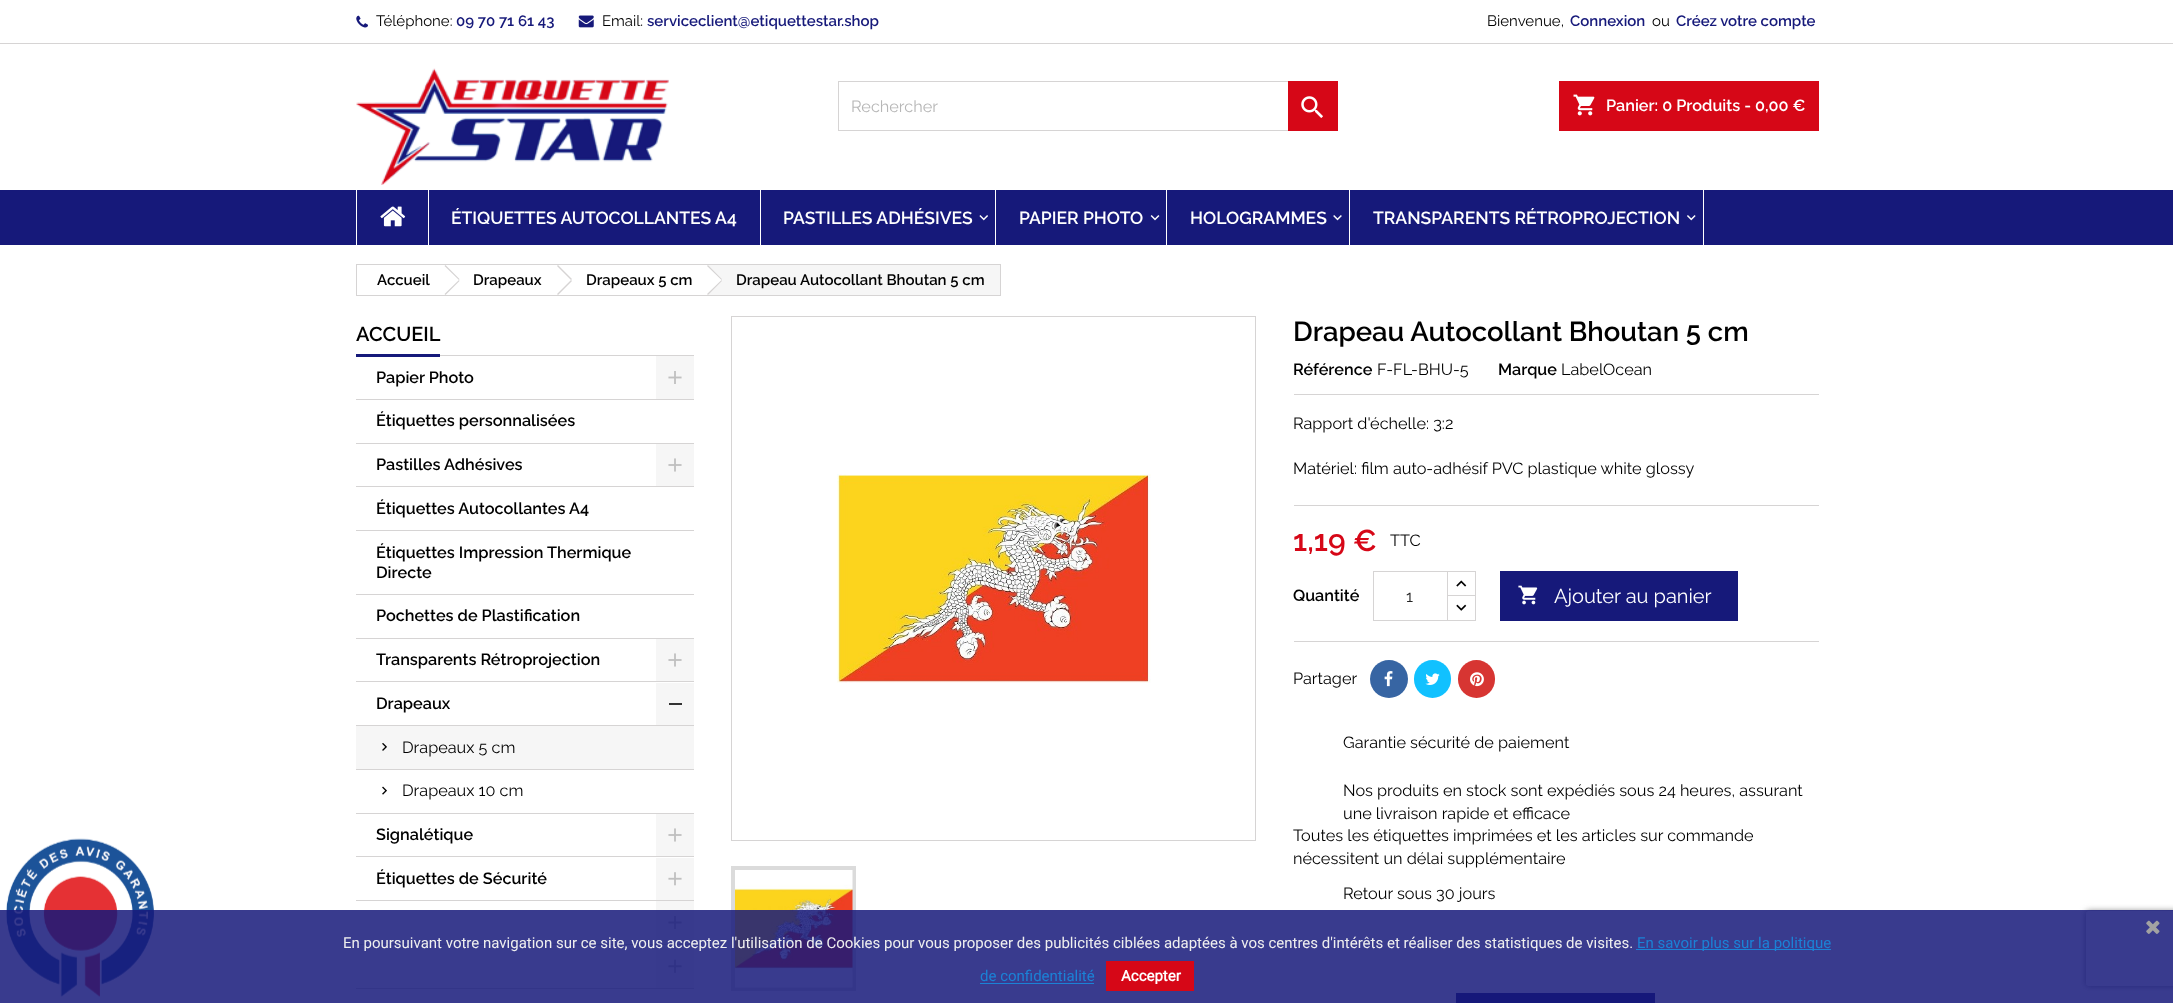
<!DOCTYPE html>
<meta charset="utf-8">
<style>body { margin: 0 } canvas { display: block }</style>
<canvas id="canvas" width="2173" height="1003"></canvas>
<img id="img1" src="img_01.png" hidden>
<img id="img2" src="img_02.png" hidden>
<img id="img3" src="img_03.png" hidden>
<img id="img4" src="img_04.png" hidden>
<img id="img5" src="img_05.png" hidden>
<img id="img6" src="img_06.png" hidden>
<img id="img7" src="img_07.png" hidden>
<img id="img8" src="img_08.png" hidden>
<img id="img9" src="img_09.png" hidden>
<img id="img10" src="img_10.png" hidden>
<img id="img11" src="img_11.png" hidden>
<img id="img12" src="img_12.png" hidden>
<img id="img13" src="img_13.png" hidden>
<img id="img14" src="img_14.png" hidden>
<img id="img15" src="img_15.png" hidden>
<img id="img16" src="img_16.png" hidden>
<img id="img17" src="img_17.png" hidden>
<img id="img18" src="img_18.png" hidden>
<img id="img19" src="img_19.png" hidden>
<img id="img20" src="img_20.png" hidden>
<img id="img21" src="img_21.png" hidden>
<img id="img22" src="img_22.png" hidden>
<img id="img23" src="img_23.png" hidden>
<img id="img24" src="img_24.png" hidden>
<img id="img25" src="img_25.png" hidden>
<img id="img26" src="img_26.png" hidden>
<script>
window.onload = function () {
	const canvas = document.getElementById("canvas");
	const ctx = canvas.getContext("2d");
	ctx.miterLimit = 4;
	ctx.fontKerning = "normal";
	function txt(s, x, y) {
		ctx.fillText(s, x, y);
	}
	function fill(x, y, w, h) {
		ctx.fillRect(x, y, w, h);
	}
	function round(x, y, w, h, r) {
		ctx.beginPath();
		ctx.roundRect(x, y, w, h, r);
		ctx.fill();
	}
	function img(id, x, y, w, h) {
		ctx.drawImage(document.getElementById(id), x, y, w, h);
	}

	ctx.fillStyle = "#FFFFFF";
	fill(0, 0, 2173, 1003);
	img("img1", 6, 838, 148, 159);
	ctx.fillStyle = "#D6D4D4";
	fill(0, 43, 2173, 1);
	img("img2", 356, 15, 12, 13);
	img("img3", 578, 15, 16, 13);
	img("img4", 356, 68, 313, 117);
	ctx.strokeStyle = "#D6D4D4";
	ctx.strokeRect(838.5, 81.5, 499, 49);
	ctx.fillStyle = "#D60717";
	fill(1288, 81, 50, 50);
	img("img5", 1301, 96, 22, 22);
	fill(1559, 81, 260, 50);
	img("img6", 1573, 94, 22, 22);
	ctx.fillStyle = "#16197A";
	fill(0, 190, 2173, 55);
	ctx.fillStyle = "#FFFFFF";
	fill(356, 190, 1, 55);
	img("img7", 380, 206, 26, 21);
	fill(428, 190, 1, 55);
	fill(760, 190, 1, 55);
	img("img8", 979, 215, 9, 6);
	fill(995, 190, 1, 55);
	img("img9", 1150, 215, 10, 6);
	fill(1166, 190, 1, 55);
	img("img10", 1333, 215, 9, 6);
	fill(1703, 190, 1, 55);
	fill(1349, 190, 1, 55);
	img("img11", 1687, 215, 9, 6);
	ctx.strokeRect(356.5, 264.5, 644, 31);
	ctx.fillStyle = "#D6D4D4";
	ctx.beginPath();
	ctx.moveTo(445.5, 265);
	ctx.lineTo(459.5, 279);
	ctx.lineTo(459, 280);
	ctx.lineTo(444.5, 266);
	ctx.closePath();
	ctx.moveTo(459, 280);
	ctx.lineTo(459.5, 281);
	ctx.lineTo(445.5, 295);
	ctx.lineTo(444.5, 294);
	ctx.closePath();
	ctx.fill();
	ctx.beginPath();
	ctx.moveTo(558, 265);
	ctx.lineTo(572, 279);
	ctx.lineTo(571, 280);
	ctx.lineTo(557, 266);
	ctx.closePath();
	ctx.moveTo(571, 280);
	ctx.lineTo(572, 281);
	ctx.lineTo(558, 295);
	ctx.lineTo(557, 294);
	ctx.closePath();
	ctx.fill();
	ctx.fillStyle = "#F6F6F6";
	fill(709, 265, 291, 30);
	ctx.fillStyle = "#FFFFFF";
	ctx.beginPath();
	ctx.moveTo(709, 266);
	ctx.lineTo(721.5, 278);
	ctx.bezierCurveTo(722.5, 279, 722.5, 281, 721.5, 282);
	ctx.lineTo(709, 294);
	ctx.bezierCurveTo(708, 295, 706.5, 295, 705.5, 294);
	ctx.lineTo(693, 282);
	ctx.bezierCurveTo(692, 281, 692, 279, 693, 278);
	ctx.lineTo(705.5, 266);
	ctx.bezierCurveTo(706.5, 265, 708, 265, 709, 266);
	ctx.closePath();
	ctx.fill();
	ctx.fillStyle = "#D6D4D4";
	ctx.beginPath();
	ctx.moveTo(708, 265);
	ctx.lineTo(722, 279);
	ctx.lineTo(721.5, 280);
	ctx.lineTo(707, 266);
	ctx.closePath();
	ctx.moveTo(721.5, 280);
	ctx.lineTo(722, 281);
	ctx.lineTo(708, 295);
	ctx.lineTo(707, 294);
	ctx.closePath();
	ctx.fill();
	fill(440, 355, 254, 1);
	ctx.fillStyle = "#16197A";
	fill(356, 354, 84, 3);
	ctx.fillStyle = "#D6D4D4";
	fill(356, 399, 338, 1);
	ctx.fillStyle = "#F6F6F6";
	fill(656, 356, 38, 43);
	img("img12", 668, 371, 14, 13);
	ctx.fillStyle = "#D6D4D4";
	fill(356, 443, 338, 1);
	fill(356, 486, 338, 1);
	ctx.fillStyle = "#F6F6F6";
	fill(656, 444, 38, 42);
	img("img13", 668, 458, 14, 14);
	ctx.fillStyle = "#D6D4D4";
	fill(356, 530, 338, 1);
	fill(356, 594, 338, 1);
	fill(356, 638, 338, 1);
	fill(356, 681, 338, 1);
	ctx.fillStyle = "#F6F6F6";
	fill(656, 639, 38, 42);
	img("img13", 668, 653, 14, 14);
	ctx.fillStyle = "#D6D4D4";
	fill(356, 725, 338, 1);
	ctx.fillStyle = "#F6F6F6";
	fill(656, 683, 38, 42);
	ctx.fillStyle = "#333333";
	fill(669, 703, 13, 2);
	ctx.fillStyle = "#F6F6F6";
	fill(356, 726, 338, 43);
	ctx.fillStyle = "#D6D4D4";
	fill(356, 769, 338, 1);
	img("img14", 382, 743, 5, 8);
	fill(356, 813, 338, 1);
	img("img15", 382, 786, 5, 9);
	fill(356, 856, 338, 1);
	ctx.fillStyle = "#F6F6F6";
	fill(656, 814, 38, 42);
	img("img13", 668, 828, 14, 14);
	ctx.fillStyle = "#D6D4D4";
	fill(356, 900, 338, 1);
	ctx.fillStyle = "#F6F6F6";
	fill(656, 858, 38, 42);
	img("img16", 668, 872, 14, 14);
	fill(656, 901, 38, 43);
	img("img12", 668, 916, 14, 13);
	ctx.fillStyle = "#D6D4D4";
	fill(356, 944, 338, 1);
	ctx.fillStyle = "#F6F6F6";
	fill(656, 945, 38, 43);
	img("img17", 668, 959, 14, 14);
	ctx.fillStyle = "#D6D4D4";
	fill(356, 988, 338, 1);
	ctx.strokeRect(731.5, 316.5, 524, 524);
	img("img18", 837, 474, 314, 209);
	ctx.strokeStyle = "#DBDBDB";
	ctx.lineWidth = 4;
	ctx.strokeRect(733, 868, 121, 121);
	img("img19", 735, 870, 118, 118);
	fill(1294, 394, 525, 1);
	fill(1294, 505, 525, 1);
	ctx.strokeStyle = "#D6D4D4";
	ctx.lineWidth = 1;
	ctx.strokeRect(1446.5, 571.5, 29, 26);
	ctx.fillStyle = "#FFFFFF";
	fill(1448, 597, 27, 1);
	ctx.strokeRect(1446.5, 595.5, 29, 25);
	fill(1446, 572, 1, 48);
	ctx.strokeRect(1373.5, 571.5, 74, 49);
	img("img20", 1456, 580, 11, 7);
	img("img21", 1456, 604, 11, 7);
	ctx.fillStyle = "#16197A";
	fill(1500, 571, 238, 50);
	img("img22", 1518, 585, 20, 20);
	ctx.fillStyle = "#D6D4D4";
	fill(1294, 641, 525, 1);
	ctx.fillStyle = "#3765A3";
	ctx.beginPath();
	ctx.arc(1389, 679, 19, 0, Math.PI * 2);
	ctx.fill();
	img("img23", 1384, 671, 9, 16);
	ctx.fillStyle = "#11C1FF";
	round(1414, 660, 37, 38, 18.5);
	img("img24", 1425, 673, 15, 12);
	ctx.fillStyle = "#D73532";
	round(1458, 660, 37, 38, 18.5);
	img("img25", 1470, 672, 14, 15);
	ctx.fillStyle = "#16197A";
	fill(1456, 993, 199, 10);
	ctx.save();
	ctx.beginPath();
	ctx.moveTo(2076, 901);
	ctx.lineTo(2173, 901);
	ctx.lineTo(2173, 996);
	ctx.lineTo(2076, 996);
	ctx.closePath();
	ctx.moveTo(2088.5, 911);
	ctx.lineTo(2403.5, 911);
	ctx.bezierCurveTo(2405, 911, 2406, 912, 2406, 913.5);
	ctx.lineTo(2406, 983.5);
	ctx.bezierCurveTo(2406, 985, 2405, 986, 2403.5, 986);
	ctx.lineTo(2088.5, 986);
	ctx.bezierCurveTo(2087, 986, 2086, 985, 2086, 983.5);
	ctx.lineTo(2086, 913.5);
	ctx.bezierCurveTo(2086, 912, 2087, 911, 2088.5, 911);
	ctx.closePath();
	ctx.clip("evenodd");
	ctx.fillStyle = "#808080";
	ctx.filter = "blur(3px)";
	ctx.beginPath();
	ctx.roundRect(2086, 911, 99, 75, 2.5);
	ctx.fill();
	ctx.filter = "none";
	ctx.restore();
	ctx.fillStyle = "rgba(22, 25, 122, 0.85)";
	fill(0, 910, 2173, 93);
	img("img26", 2146, 920, 14, 14);
	ctx.fillStyle = "#1B82D6";
	fill(1636, 949, 195, 1);
	fill(980, 983, 114, 1);
	ctx.fillStyle = "#D60717";
	fill(1106, 961, 88, 30);
	ctx.font = "15px Raleway";
	ctx.fillStyle = "#000000";
	txt("Téléphone:", 376, 26);
	ctx.font = "600 15px Raleway";
	ctx.fillStyle = "#16197A";
	txt("09 70 71 61 43", 456, 26);
	ctx.font = "15px Raleway";
	ctx.fillStyle = "#000000";
	txt("Email:", 602, 26);
	ctx.font = "600 15px Raleway";
	ctx.fillStyle = "#16197A";
	txt("serviceclient@etiquettestar.shop", 647, 26);
	ctx.font = "15px Raleway";
	ctx.fillStyle = "#000000";
	txt("Bienvenue,", 1487, 26);
	ctx.font = "600 15px Raleway";
	ctx.fillStyle = "#16197A";
	txt("Connexion", 1570, 26);
	ctx.font = "15px Raleway";
	ctx.fillStyle = "#000000";
	txt("ou", 1652, 26);
	ctx.font = "600 15px Raleway";
	ctx.fillStyle = "#16197A";
	txt("Créez votre compte", 1676, 26);
	ctx.font = "16.25px Raleway";
	ctx.fillStyle = "#B7B7B7";
	txt("Rechercher", 851, 112);
	ctx.font = "600 16.25px Raleway";
	ctx.fillStyle = "#FFFFFF";
	txt("Panier: 0 Produits - 0,00 €", 1606, 111);
	ctx.font = "600 17.5px Raleway";
	txt("ÉTIQUETTES AUTOCOLLANTES A4", 451, 224);
	txt("PASTILLES ADHÉSIVES", 783, 224);
	txt("PAPIER PHOTO", 1019, 224);
	txt("HOLOGRAMMES", 1190, 224);
	txt("TRANSPARENTS RÉTROPROJECTION", 1373, 224);
	ctx.font = "600 15px Raleway";
	ctx.fillStyle = "#000000";
	txt("Accueil", 377, 285);
	txt("Drapeaux", 473, 285);
	txt("Drapeaux 5 cm", 586, 285);
	txt("Drapeau Autocollant Bhoutan 5 cm", 736, 285);
	ctx.font = "600 20px Raleway";
	txt("ACCUEIL", 356, 341);
	ctx.font = "600 16.25px Raleway";
	txt("Papier Photo", 376, 383);
	txt("Étiquettes personnalisées", 376, 426);
	txt("Pastilles Adhésives", 376, 470);
	txt("Étiquettes Autocollantes A4", 376, 514);
	txt("Étiquettes Impression Thermique", 376, 558);
	txt("Directe", 376, 578);
	txt("Pochettes de Plastification", 376, 621);
	txt("Transparents Rétroprojection", 376, 665);
	txt("Drapeaux", 376, 709);
	ctx.font = "16.25px Raleway";
	txt("Drapeaux 5 cm", 402, 753);
	txt("Drapeaux 10 cm", 402, 796);
	ctx.font = "600 16.25px Raleway";
	txt("Signalétique", 376, 840);
	txt("Étiquettes de Sécurité", 376, 884);
	ctx.font = "600 27.5px Raleway";
	txt("Drapeau Autocollant Bhoutan 5 cm", 1293, 341);
	ctx.font = "600 16.25px Raleway";
	txt("Référence", 1293, 375);
	ctx.font = "16.25px Raleway";
	txt("F-FL-BHU-5", 1377, 375);
	ctx.font = "600 16.25px Raleway";
	txt("Marque", 1498, 375);
	ctx.font = "16.25px Raleway";
	txt("LabelOcean", 1561, 375);
	txt("Rapport d'échelle: 3:2", 1293, 429);
	txt("Matériel: film auto-adhésif PVC plastique white glossy", 1293, 474);
	ctx.font = "600 30px Raleway";
	ctx.fillStyle = "#D60717";
	txt("1,19 €", 1293, 551);
	ctx.font = "16.25px Raleway";
	ctx.fillStyle = "#000000";
	txt("TTC", 1390, 546);
	ctx.font = "600 16.25px Raleway";
	txt("Quantité", 1293, 601);
	ctx.font = "16.25px Raleway";
	ctx.fillStyle = "#232323";
	txt("1", 1406, 602);
	ctx.font = "20px Raleway";
	ctx.fillStyle = "#FFFFFF";
	txt("Ajouter au panier", 1554, 603);
	ctx.font = "16.25px Raleway";
	ctx.fillStyle = "#000000";
	txt("Partager", 1293, 684);
	txt("Garantie sécurité de paiement", 1343, 748);
	txt("Nos produits en stock sont expédiés sous 24 heures, assurant", 1343, 796);
	txt("une livraison rapide et efficace", 1343, 819);
	txt("Toutes les étiquettes imprimées et les articles sur commande", 1293, 841);
	txt("nécessitent un délai supplémentaire", 1293, 864);
	txt("Retour sous 30 jours", 1343, 899);
	ctx.font = "15px Roboto";
	ctx.fillStyle = "#EFEFEF";
	txt("En poursuivant votre navigation sur ce site, vous acceptez l'utilisation de Cookies pour vous proposer des publicités ciblées adaptées à vos centres d'intérêts et réaliser des statistiques de visites.", 343, 948);
	ctx.fillStyle = "#1B82D6";
	txt("En savoir plus sur la politique", 1637, 948);
	txt("de confidentialité", 980, 981);
	ctx.font = "bold 15px Roboto";
	ctx.fillStyle = "#FFFFFF";
	txt("Accepter", 1121, 981);
};
</script>
